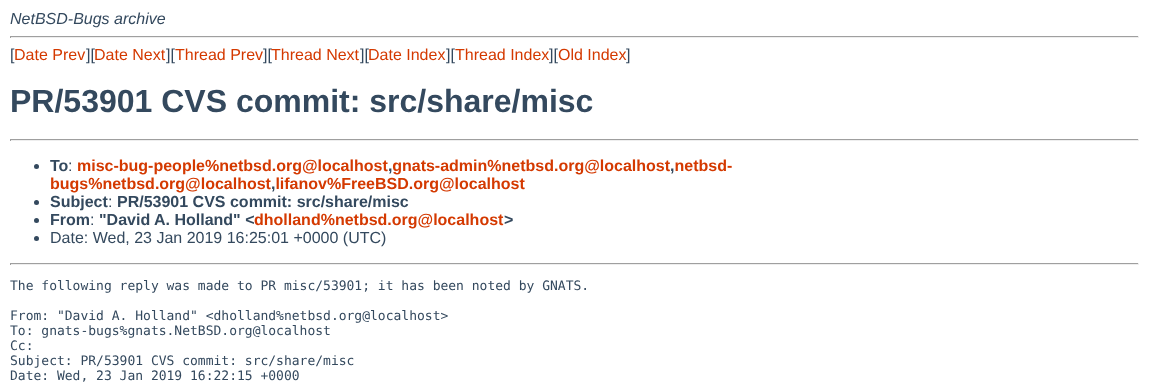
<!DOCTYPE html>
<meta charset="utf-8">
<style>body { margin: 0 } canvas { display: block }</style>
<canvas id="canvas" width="1149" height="389"></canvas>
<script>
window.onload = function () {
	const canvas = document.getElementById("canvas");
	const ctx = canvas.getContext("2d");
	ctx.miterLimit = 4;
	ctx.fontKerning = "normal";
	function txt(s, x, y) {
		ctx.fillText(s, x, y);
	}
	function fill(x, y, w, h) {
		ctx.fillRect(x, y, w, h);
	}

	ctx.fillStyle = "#FFFFFF";
	fill(0, 0, 1149, 389);
	ctx.fillStyle = "#9F9F9F";
	fill(10, 36, 1129, 1);
	ctx.fillStyle = "#EEEEEE";
	fill(1138, 36, 1, 2);
	fill(10, 37, 1129, 1);
	ctx.fillStyle = "#9F9F9F";
	fill(10, 36, 1, 2);
	fill(10, 139, 1129, 1);
	ctx.fillStyle = "#EEEEEE";
	fill(1138, 139, 1, 2);
	fill(10, 140, 1129, 1);
	ctx.fillStyle = "#9F9F9F";
	fill(10, 139, 1, 2);
	ctx.fillStyle = "#34495E";
	ctx.beginPath();
	ctx.arc(36.5, 166.5, 2.5, 0, Math.PI * 2);
	ctx.fill();
	ctx.beginPath();
	ctx.arc(36.5, 202.5, 2.5, 0, Math.PI * 2);
	ctx.fill();
	ctx.beginPath();
	ctx.arc(36.5, 220.5, 2.5, 0, Math.PI * 2);
	ctx.fill();
	ctx.beginPath();
	ctx.arc(36.5, 238.5, 2.5, 0, Math.PI * 2);
	ctx.fill();
	ctx.fillStyle = "#9F9F9F";
	fill(10, 263, 1129, 1);
	ctx.fillStyle = "#EEEEEE";
	fill(1138, 263, 1, 2);
	fill(10, 264, 1129, 1);
	ctx.fillStyle = "#9F9F9F";
	fill(10, 263, 1, 2);
	ctx.font = "italic 16px Liberation Sans";
	ctx.fillStyle = "#34495E";
	txt("NetBSD-Bugs archive", 10, 24);
	ctx.font = "16px Liberation Sans";
	txt("[", 10, 60);
	ctx.fillStyle = "#D43900";
	txt("Date Prev", 14, 60);
	ctx.fillStyle = "#34495E";
	txt("][", 86, 60);
	ctx.fillStyle = "#D43900";
	txt("Date Next", 94, 60);
	ctx.fillStyle = "#34495E";
	txt("][", 166, 60);
	ctx.fillStyle = "#D43900";
	txt("Thread Prev", 175, 60);
	ctx.fillStyle = "#34495E";
	txt("][", 263, 60);
	ctx.fillStyle = "#D43900";
	txt("Thread Next", 271, 60);
	ctx.fillStyle = "#34495E";
	txt("][", 360, 60);
	ctx.fillStyle = "#D43900";
	txt("Date Index", 368, 60);
	ctx.fillStyle = "#34495E";
	txt("][", 446, 60);
	ctx.fillStyle = "#D43900";
	txt("Thread Index", 455, 60);
	ctx.fillStyle = "#34495E";
	txt("][", 549, 60);
	ctx.fillStyle = "#D43900";
	txt("Old Index", 558, 60);
	ctx.fillStyle = "#34495E";
	txt("]", 626, 60);
	ctx.font = "bold 32px Liberation Sans";
	txt("PR/53901 CVS commit: src/share/misc", 10, 112);
	ctx.font = "bold 16px Liberation Sans";
	txt("To", 50, 171);
	ctx.font = "16px Liberation Sans";
	txt(":", 68, 171);
	ctx.font = "bold 16px Liberation Sans";
	ctx.fillStyle = "#D43900";
	txt("misc-bug-people%netbsd.org@localhost gnats-admin%netbsd.org@localhost netbsd-", 77, 171);
	ctx.fillStyle = "#34495E";
	txt(",", 388, 171);
	txt(",", 670, 171);
	ctx.fillStyle = "#D43900";
	txt("bugs%netbsd.org@localhost lifanov%FreeBSD.org@localhost", 50, 189);
	ctx.fillStyle = "#34495E";
	txt(",", 271, 189);
	txt("Subject", 50, 207);
	ctx.font = "16px Liberation Sans";
	txt(":", 108, 207);
	ctx.font = "bold 16px Liberation Sans";
	txt("PR/53901 CVS commit: src/share/misc", 117, 207);
	txt("From", 50, 225);
	ctx.font = "16px Liberation Sans";
	txt(":", 90, 225);
	ctx.font = "bold 16px Liberation Sans";
	txt("\"David A. Holland\" <", 99, 225);
	ctx.fillStyle = "#D43900";
	txt("dholland%netbsd.org@localhost", 254, 225);
	ctx.fillStyle = "#34495E";
	txt(">", 504, 225);
	ctx.font = "16px Liberation Sans";
	txt("Date: Wed, 23 Jan 2019 16:25:01 +0000 (UTC)", 50, 243);
	ctx.font = "13px DejaVu Sans Mono";
	txt("The following reply was made to PR misc/53901; it has been noted by GNATS.", 10, 290);
	txt("From: \"David A. Holland\" <dholland%netbsd.org@localhost>", 10, 320);
	txt("To: gnats-bugs%gnats.NetBSD.org@localhost", 10, 335);
	txt("Cc:", 10, 350);
	txt("Subject: PR/53901 CVS commit: src/share/misc", 10, 365);
	txt("Date: Wed, 23 Jan 2019 16:22:15 +0000", 10, 380);
};
</script>
